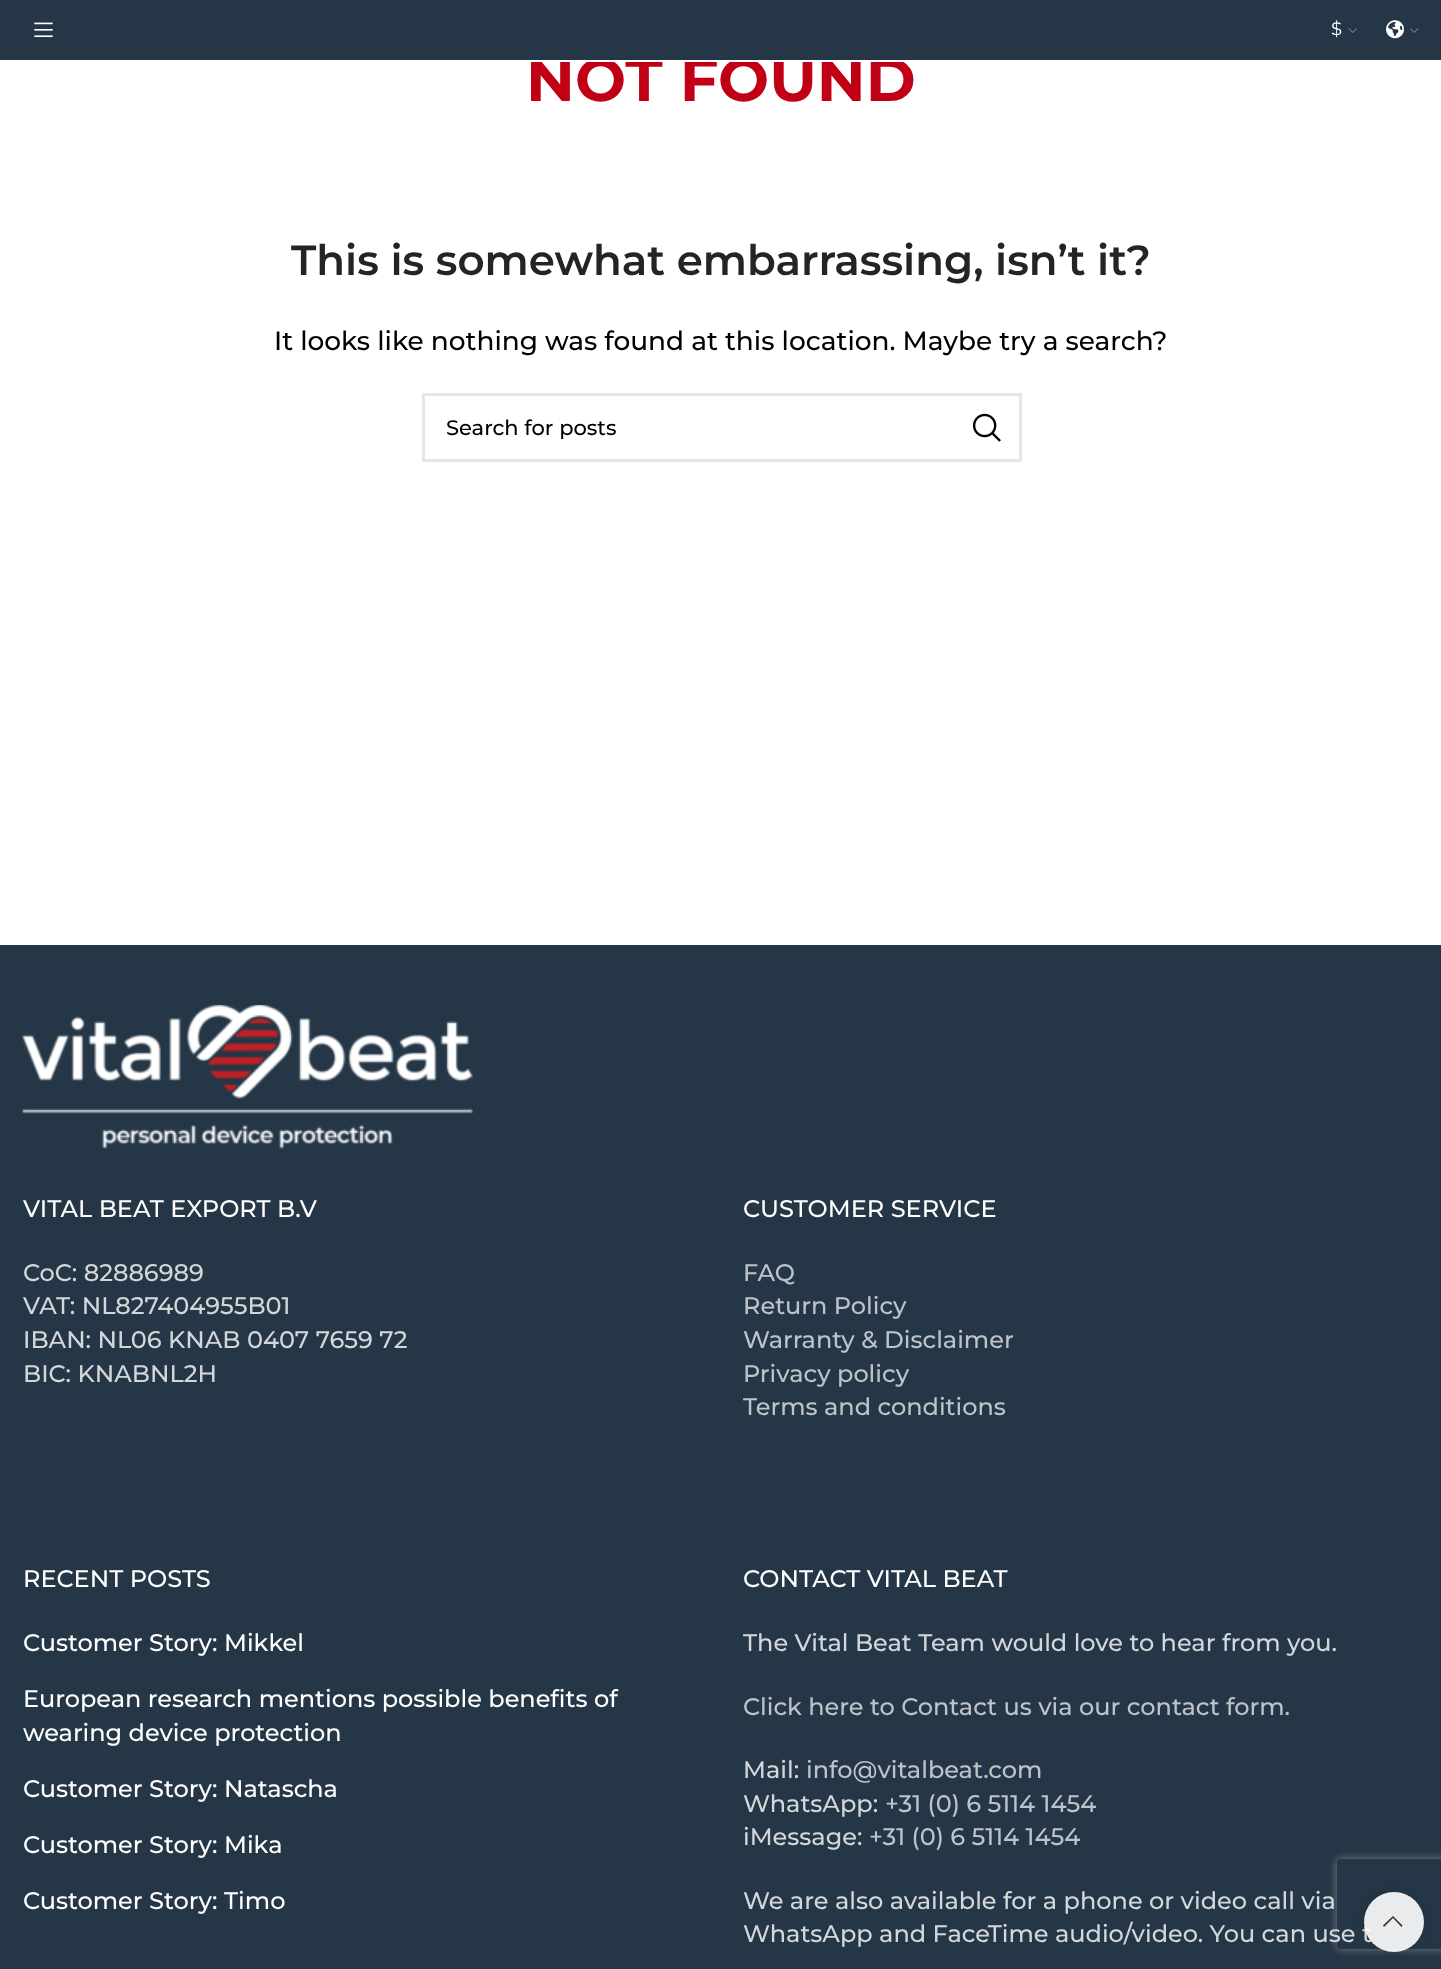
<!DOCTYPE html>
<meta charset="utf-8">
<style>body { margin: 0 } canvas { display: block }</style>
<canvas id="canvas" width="1441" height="1969"></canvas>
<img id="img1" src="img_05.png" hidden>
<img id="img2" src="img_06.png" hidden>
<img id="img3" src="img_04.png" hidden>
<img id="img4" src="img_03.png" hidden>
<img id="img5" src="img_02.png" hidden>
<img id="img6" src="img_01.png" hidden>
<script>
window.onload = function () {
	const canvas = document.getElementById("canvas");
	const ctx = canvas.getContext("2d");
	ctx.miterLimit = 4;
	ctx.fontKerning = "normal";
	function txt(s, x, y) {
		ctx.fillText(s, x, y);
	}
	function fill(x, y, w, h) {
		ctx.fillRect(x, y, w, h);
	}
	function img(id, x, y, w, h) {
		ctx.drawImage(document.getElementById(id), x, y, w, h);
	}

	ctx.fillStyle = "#FFFFFF";
	fill(0, 0, 1441, 1969);
	ctx.strokeStyle = "#E6E6E6";
	ctx.lineWidth = 3;
	ctx.strokeRect(423.5, 394.5, 597, 66);
	img("img1", 972, 413, 29, 29);
	ctx.fillStyle = "#253746";
	fill(0, 945, 1441, 1024);
	img("img2", 22, 1005, 451, 144);
	ctx.save();
	ctx.beginPath();
	ctx.moveTo(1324, 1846);
	ctx.lineTo(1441, 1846);
	ctx.lineTo(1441, 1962);
	ctx.lineTo(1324, 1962);
	ctx.closePath();
	ctx.moveTo(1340, 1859);
	ctx.lineTo(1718, 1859);
	ctx.bezierCurveTo(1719.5, 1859, 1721, 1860.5, 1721, 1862);
	ctx.lineTo(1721, 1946);
	ctx.bezierCurveTo(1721, 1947.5, 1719.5, 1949, 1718, 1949);
	ctx.lineTo(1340, 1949);
	ctx.bezierCurveTo(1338.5, 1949, 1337, 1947.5, 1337, 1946);
	ctx.lineTo(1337, 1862);
	ctx.bezierCurveTo(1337, 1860.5, 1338.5, 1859, 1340, 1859);
	ctx.closePath();
	ctx.clip("evenodd");
	ctx.fillStyle = "#808080";
	ctx.filter = "blur(4px)";
	ctx.beginPath();
	ctx.roundRect(1337, 1859, 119, 90, 3);
	ctx.fill();
	ctx.filter = "none";
	ctx.restore();
	ctx.save();
	ctx.beginPath();
	ctx.moveTo(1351, 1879);
	ctx.lineTo(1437, 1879);
	ctx.lineTo(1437, 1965);
	ctx.lineTo(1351, 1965);
	ctx.closePath();
	ctx.moveTo(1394, 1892);
	ctx.bezierCurveTo(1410.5, 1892, 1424, 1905.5, 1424, 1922);
	ctx.bezierCurveTo(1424, 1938.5, 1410.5, 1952, 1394, 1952);
	ctx.bezierCurveTo(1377.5, 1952, 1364, 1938.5, 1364, 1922);
	ctx.bezierCurveTo(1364, 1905.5, 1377.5, 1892, 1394, 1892);
	ctx.closePath();
	ctx.clip("evenodd");
	ctx.fillStyle = "rgba(0, 0, 0, 0.17)";
	ctx.filter = "blur(4px)";
	ctx.beginPath();
	ctx.roundRect(1364, 1892, 60, 60, 30);
	ctx.fill();
	ctx.filter = "none";
	ctx.restore();
	ctx.font = "bold 60.5px Montserrat";
	ctx.fillStyle = "#C10016";
	txt("NOT FOUND", 526, 101);
	ctx.fillStyle = "#253746";
	fill(0, 0, 1441, 60);
	img("img3", 1410, 28, 9, 5);
	img("img4", 1386, 20, 18, 19);
	img("img5", 1348, 28, 9, 5);
	ctx.font = "18px Montserrat";
	ctx.fillStyle = "#FFFFFF";
	txt("$", 1331, 35);
	img("img6", 34, 22, 19, 16);
	fill(530, 60, 374, 2);
	ctx.font = "600 42px Montserrat";
	ctx.fillStyle = "#242424";
	txt("This is somewhat embarrassing, isn’t it?", 291, 275);
	ctx.font = "500 26.4px Montserrat";
	ctx.fillStyle = "#000000";
	txt("It looks like nothing was found at this location. Maybe try a search?", 274, 350);
	ctx.font = "500 21px Montserrat";
	txt("Search for posts", 446, 435);
	ctx.font = "500 24px Montserrat";
	ctx.fillStyle = "#FFFFFF";
	txt("VITAL BEAT EXPORT B.V", 23, 1217);
	ctx.fillStyle = "#D3D7DA";
	txt("CoC: 82886989", 23, 1281);
	txt("VAT: NL827404955B01", 23, 1314);
	txt("IBAN: NL06 KNAB 0407 7659 72", 23, 1348);
	txt("BIC: KNABNL2H", 23, 1382);
	ctx.fillStyle = "#FFFFFF";
	txt("CUSTOMER SERVICE", 743, 1217);
	ctx.fillStyle = "#BEC3C8";
	txt("FAQ", 743, 1281);
	txt("Return Policy", 743, 1314);
	txt("Warranty & Disclaimer", 743, 1348);
	txt("Privacy policy", 743, 1382);
	txt("Terms and conditions", 743, 1415);
	ctx.fillStyle = "#FFFFFF";
	txt("RECENT POSTS", 23, 1587);
	txt("Customer Story: Mikkel", 23, 1651);
	txt("European research mentions possible benefits of", 23, 1707);
	txt("wearing device protection", 23, 1741);
	txt("Customer Story: Natascha", 23, 1797);
	txt("Customer Story: Mika", 23, 1853);
	txt("Customer Story: Timo", 23, 1909);
	txt("CONTACT VITAL BEAT", 743, 1587);
	ctx.fillStyle = "#D3D7DA";
	txt("The Vital Beat Team would love to hear from you.", 743, 1651);
	ctx.fillStyle = "#BEC3C8";
	txt("Click here to Contact us via our contact form.", 743, 1715);
	ctx.fillStyle = "#D3D7DA";
	txt("Mail:", 743, 1778);
	ctx.fillStyle = "#BEC3C8";
	txt("info@vitalbeat.com", 806, 1778);
	ctx.fillStyle = "#D3D7DA";
	txt("WhatsApp:", 743, 1812);
	ctx.fillStyle = "#BEC3C8";
	txt("+31 (0) 6 5114 1454", 885, 1812);
	ctx.fillStyle = "#D3D7DA";
	txt("iMessage:", 743, 1845);
	ctx.fillStyle = "#BEC3C8";
	txt("+31 (0) 6 5114 1454", 869, 1845);
	ctx.fillStyle = "#D3D7DA";
	txt("We are also available for a phone or video call via", 743, 1909);
	txt("WhatsApp and FaceTime audio/video. You can use t", 743, 1942);
	ctx.fillStyle = "rgba(255, 255, 255, 0.9)";
	ctx.beginPath();
	ctx.arc(1394, 1922, 30, 0, Math.PI * 2);
	ctx.fill();
	ctx.fillStyle = "#333333";
	ctx.beginPath();
	ctx.moveTo(1401.5, 1927);
	ctx.lineTo(1402.5, 1925.5);
	ctx.lineTo(1393, 1916);
	ctx.lineTo(1383, 1925.5);
	ctx.lineTo(1384, 1927);
	ctx.lineTo(1393, 1918);
	ctx.closePath();
	ctx.fill();
};
</script>
